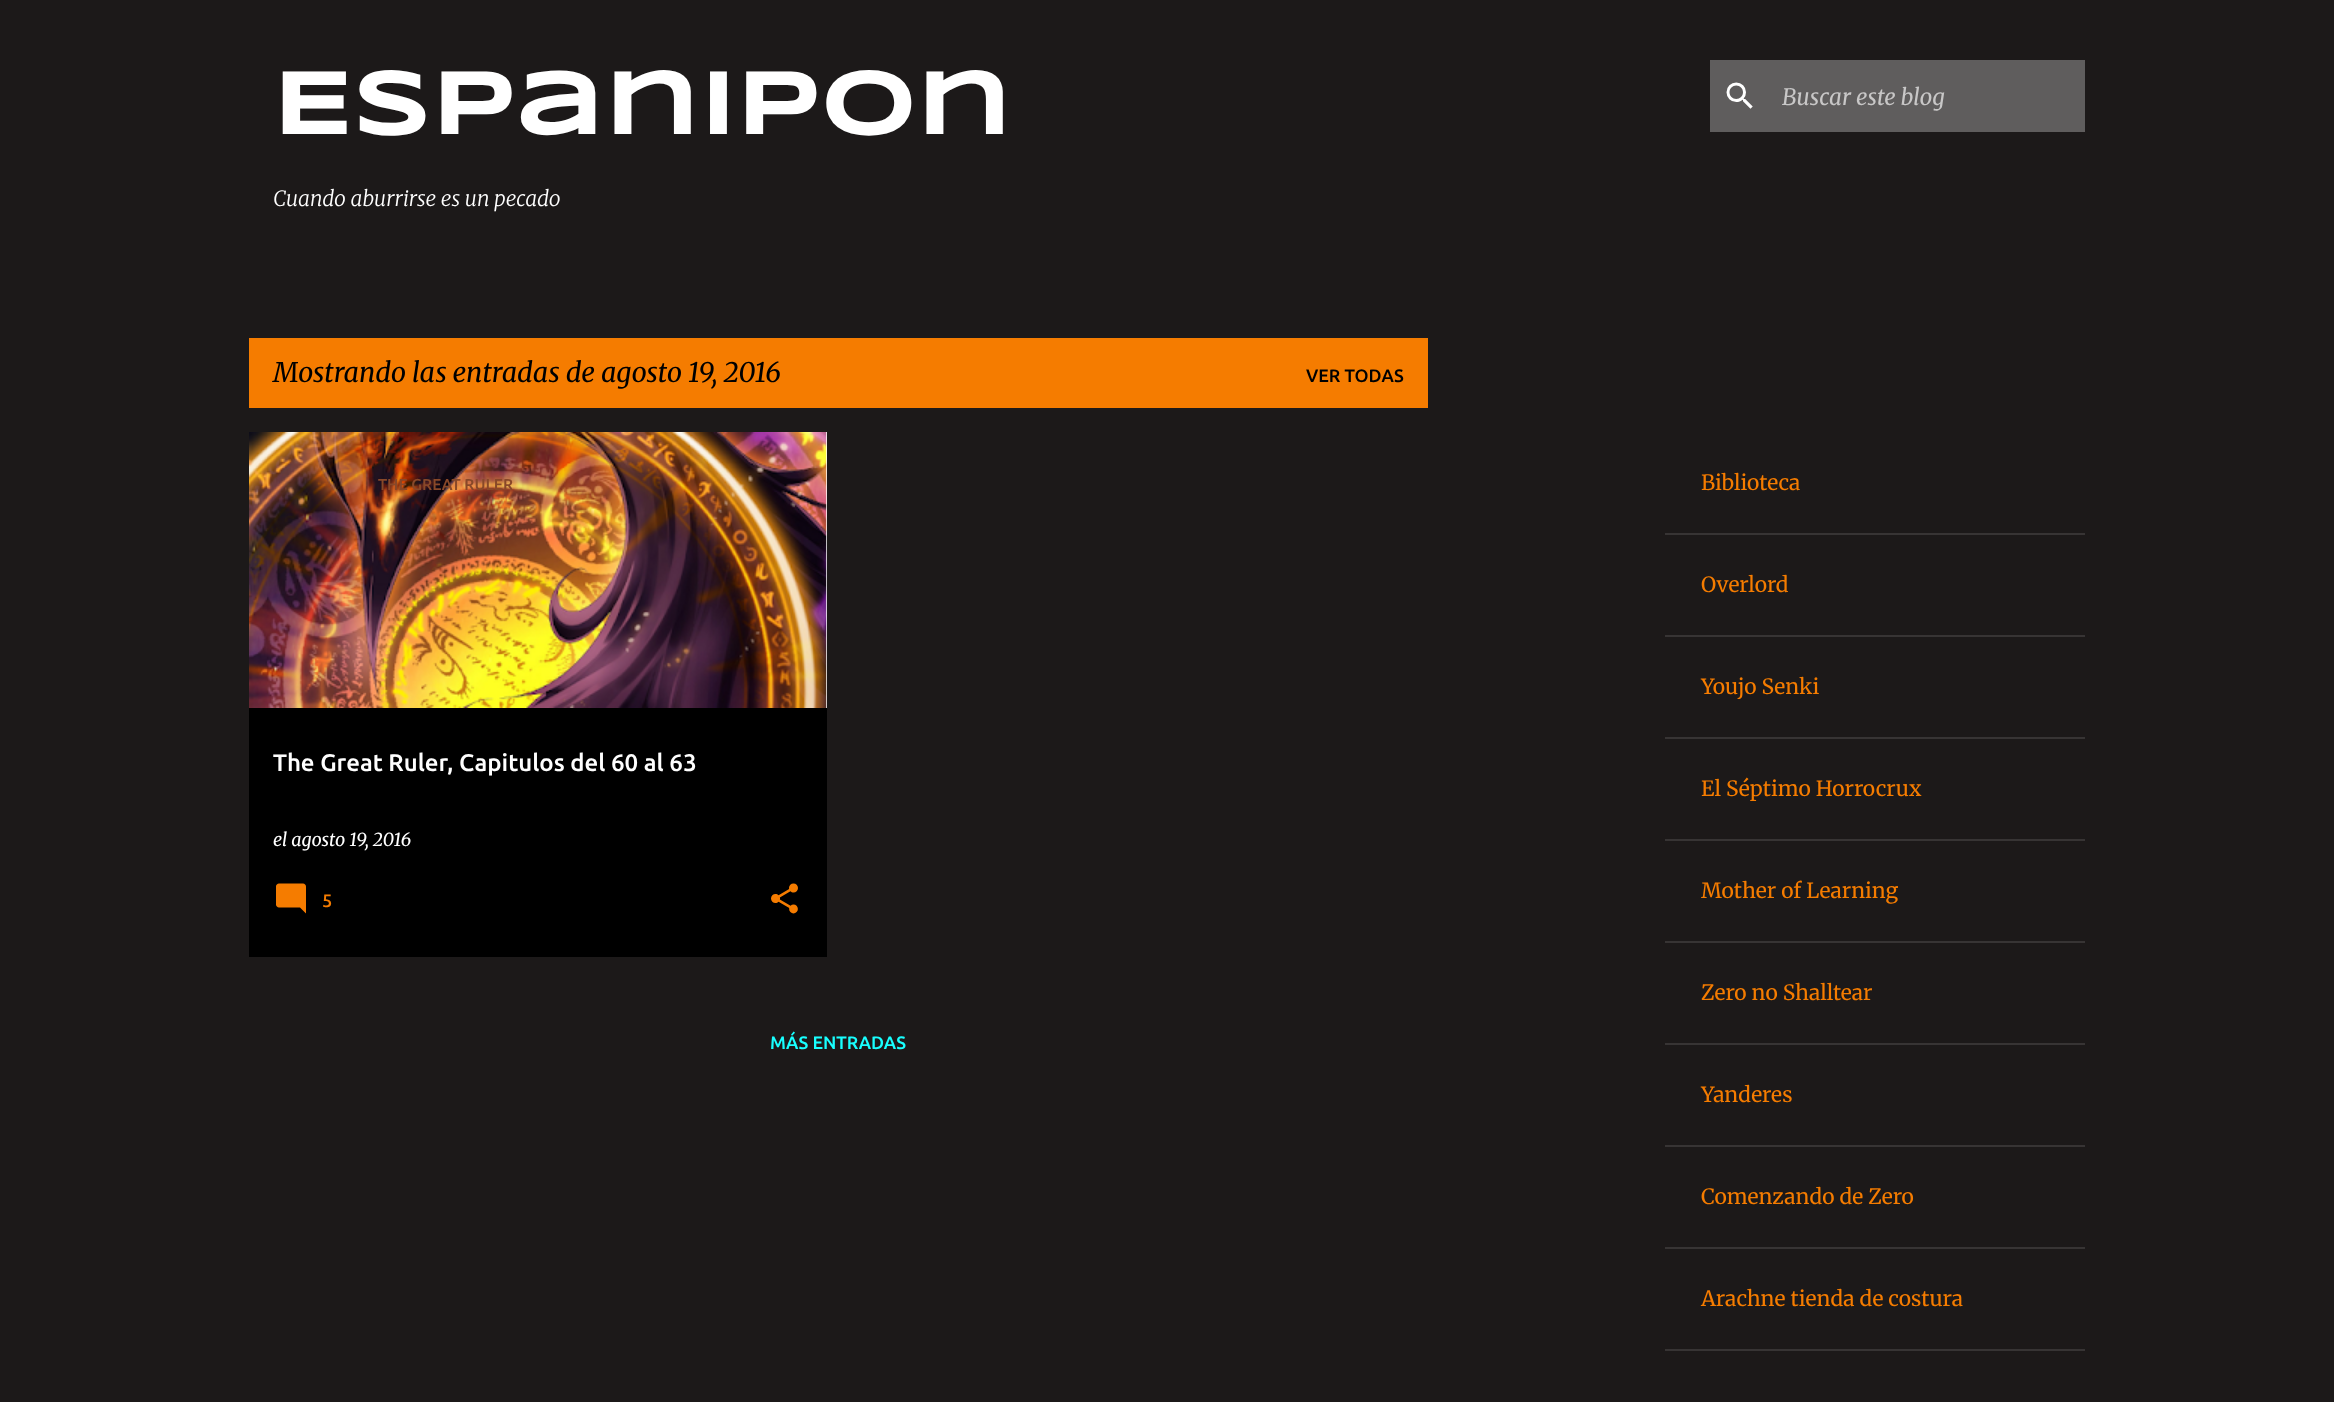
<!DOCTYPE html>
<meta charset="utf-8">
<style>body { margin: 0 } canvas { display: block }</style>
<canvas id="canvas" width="2334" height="1402"></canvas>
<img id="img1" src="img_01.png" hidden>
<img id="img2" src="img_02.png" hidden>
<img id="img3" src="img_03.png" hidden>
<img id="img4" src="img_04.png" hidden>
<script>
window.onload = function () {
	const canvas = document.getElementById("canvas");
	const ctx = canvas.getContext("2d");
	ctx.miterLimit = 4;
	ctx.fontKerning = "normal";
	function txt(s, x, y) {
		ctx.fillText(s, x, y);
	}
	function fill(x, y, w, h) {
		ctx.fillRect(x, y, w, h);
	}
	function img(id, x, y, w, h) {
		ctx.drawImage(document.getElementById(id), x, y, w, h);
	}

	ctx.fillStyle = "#1C1919";
	fill(0, 0, 2334, 1402);
	ctx.fillStyle = "#5F5D5D";
	fill(1710, 60, 375, 72);
	img("img1", 1726, 82, 27, 27);
	ctx.fillStyle = "#F57C00";
	fill(249, 338, 1179, 70);
	ctx.fillStyle = "#000000";
	fill(249, 708, 578, 249);
	ctx.fillStyle = "#FFFFFF";
	fill(826, 432, 1, 276);
	img("img2", 249, 432, 578, 276);
	img("img3", 276, 883, 30, 31);
	img("img4", 771, 883, 27, 31);
	ctx.fillStyle = "#373434";
	fill(1665, 533, 420, 2);
	fill(1665, 635, 420, 2);
	fill(1665, 737, 420, 2);
	fill(1665, 839, 420, 2);
	fill(1665, 941, 420, 2);
	fill(1665, 1043, 420, 2);
	fill(1665, 1145, 420, 2);
	fill(1665, 1247, 420, 2);
	fill(1665, 1349, 420, 2);
	ctx.font = "bold 93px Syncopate";
	ctx.fillStyle = "#FFFFFF";
	txt("Espanipon", 273, 134);
	ctx.font = "italic 300 21px Merriweather";
	txt("Cuando aburrirse es un pecado", 273, 206);
	ctx.font = "italic 22.5px Merriweather";
	ctx.fillStyle = "#C8C7C7";
	txt("Buscar este blog", 1782, 105);
	ctx.font = "italic 27px Merriweather";
	ctx.fillStyle = "#000000";
	txt("Mostrando las entradas de agosto 19, 2016", 273, 382);
	ctx.font = "500 18px Ubuntu";
	txt("VER TODAS", 1306, 382);
	ctx.font = "500 15.75px Ubuntu";
	ctx.fillStyle = "#884829";
	txt("THE GREAT RULER", 378, 490);
	ctx.font = "italic 18px Merriweather";
	ctx.fillStyle = "#FFFFFF";
	txt("el agosto 19, 2016", 273, 846);
	ctx.font = "500 24px Ubuntu";
	txt("The Great Ruler, Capitulos del 60 al 63", 273, 771);
	ctx.font = "500 18px Ubuntu";
	ctx.fillStyle = "#F57C00";
	txt("5", 322, 907);
	ctx.fillStyle = "#18FFFF";
	txt("MÁS ENTRADAS", 770, 1049);
	ctx.font = "300 21px Merriweather";
	ctx.fillStyle = "#F57C00";
	txt("Biblioteca", 1701, 490);
	txt("Overlord", 1701, 592);
	txt("Youjo Senki", 1701, 694);
	txt("El Séptimo Horrocrux", 1701, 796);
	txt("Mother of Learning", 1701, 898);
	txt("Zero no Shalltear", 1701, 1000);
	txt("Yanderes", 1701, 1102);
	txt("Comenzando de Zero", 1701, 1204);
	txt("Arachne tienda de costura", 1701, 1306);
};
</script>
